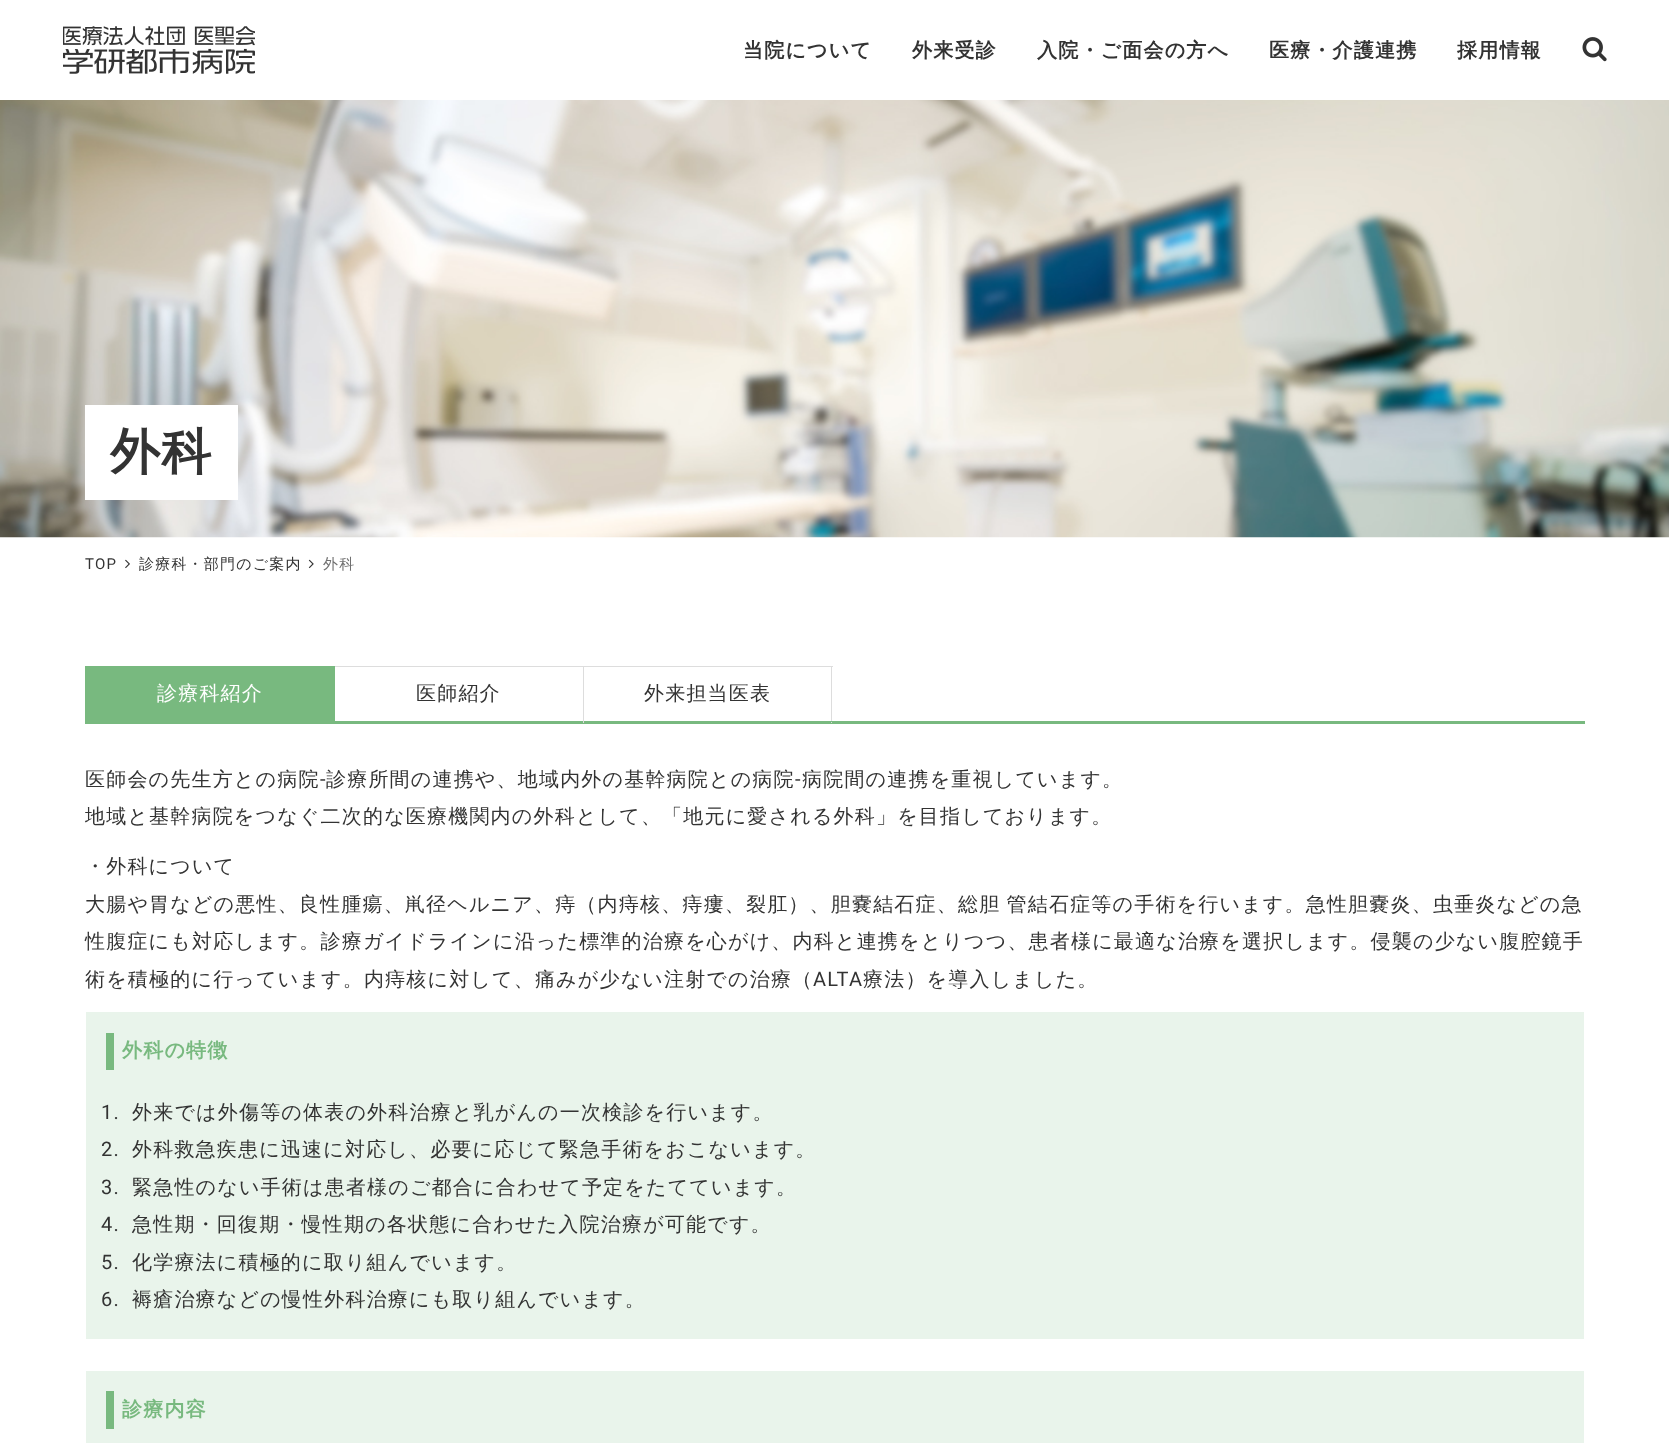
<!DOCTYPE html>
<meta charset="utf-8">
<style>body { margin: 0 } canvas { display: block }</style>
<canvas id="canvas" width="1669" height="1443"></canvas>
<img id="img1" src="img_01.png" hidden>
<img id="img2" src="img_02.png" hidden>
<img id="img3" src="img_03.png" hidden>
<img id="img4" src="img_04.png" hidden>
<img id="img5" src="img_05.png" hidden>
<script>
window.onload = function () {
	const canvas = document.getElementById("canvas");
	const ctx = canvas.getContext("2d");
	ctx.miterLimit = 4;
	ctx.fontKerning = "normal";
	function txt(s, x, y) {
		ctx.fillText(s, x, y);
	}
	function fill(x, y, w, h) {
		ctx.fillRect(x, y, w, h);
	}
	function img(id, x, y, w, h) {
		ctx.drawImage(document.getElementById(id), x, y, w, h);
	}

	ctx.fillStyle = "#FFFFFF";
	fill(0, 0, 1669, 1443);
	img("img1", 63, 26, 192, 48);
	img("img2", 1582, 37, 25, 25);
	img("img3", 0, 100, 1669, 438);
	fill(85, 405, 153, 95);
	img("img4", 125, 559, 5, 10);
	img("img5", 308, 559, 6, 10);
	ctx.fillStyle = "#78B97F";
	fill(85, 721, 1500, 3);
	ctx.fillStyle = "#DDDDDD";
	fill(334, 666, 499, 1);
	ctx.fillStyle = "#78B97F";
	fill(85, 666, 250, 55);
	ctx.fillStyle = "#DDDDDD";
	fill(831, 666, 1, 57);
	ctx.fillStyle = "#78B97F";
	fill(831, 721, 2, 1);
	ctx.fillStyle = "#DDDDDD";
	fill(583, 666, 1, 57);
	ctx.fillStyle = "#E9F4EB";
	fill(86, 1012, 1498, 327);
	ctx.fillStyle = "#78B97F";
	fill(106, 1033, 8, 37);
	ctx.fillStyle = "#E9F4EB";
	fill(86, 1371, 1498, 72);
	ctx.fillStyle = "#78B97F";
	fill(106, 1391, 8, 38);
	ctx.letterSpacing = "1.2px";
	ctx.font = "bold 20px WenQuanYi Zen Hei";
	ctx.fillStyle = "#333333";
	txt("当院について", 743, 57);
	txt("外来受診", 912, 57);
	txt("入院・ご面会の方へ", 1037, 57);
	txt("医療・介護連携", 1269, 57);
	txt("採用情報", 1457, 57);
	ctx.font = "bold 50px WenQuanYi Zen Hei";
	txt("外科", 110, 469);
	ctx.font = "15px Roboto";
	txt("TOP", 85, 569);
	ctx.font = "500 15px WenQuanYi Zen Hei";
	txt("診療科・部門のご案内", 139, 569);
	ctx.fillStyle = "#707070";
	txt("外科", 323, 569);
	ctx.font = "500 20px WenQuanYi Zen Hei";
	ctx.fillStyle = "#FFFFFF";
	txt("診療科紹介", 157, 700);
	ctx.fillStyle = "#333333";
	txt("医師紹介", 416, 700);
	txt("外来担当医表", 644, 700);
	txt("医師会の先生方との病院", 85, 786);
	ctx.font = "20px Roboto";
	txt("-", 320, 786);
	ctx.font = "500 20px WenQuanYi Zen Hei";
	txt("診療所間の連携や、地域内外の基幹病院との病院", 326, 786);
	ctx.font = "20px Roboto";
	txt("-", 795, 786);
	ctx.font = "500 20px WenQuanYi Zen Hei";
	txt("病院間の連携を重視しています。", 802, 786);
	txt("地域と基幹病院をつなぐ二次的な医療機関内の外科として、「地元に愛される外科」を目指しております。", 85, 823);
	txt("・外科について", 85, 873);
	ctx.wordSpacing = "-1px";
	txt("大腸や胃などの悪性、良性腫瘍、鼡径ヘルニア、痔（内痔核、痔瘻、裂肛）、胆嚢結石症、総胆 管結石症等の手術を行います。急性胆嚢炎、虫垂炎などの急", 85, 911);
	ctx.wordSpacing = "0px";
	txt("性腹症にも対応します。診療ガイドラインに沿った標準的治療を心がけ、内科と連携をとりつつ、患者様に最適な治療を選択します。侵襲の少ない腹腔鏡手", 85, 948);
	txt("術を積極的に行っています。内痔核に対して、痛みが少ない注射での治療（", 85, 986);
	ctx.font = "20px Roboto";
	txt("ALTA", 813, 986);
	ctx.font = "500 20px WenQuanYi Zen Hei";
	txt("療法）を導入しました。", 863, 986);
	ctx.font = "bold 20px WenQuanYi Zen Hei";
	ctx.fillStyle = "#78B97F";
	txt("外科の特徴", 122, 1057);
	ctx.font = "20px Roboto";
	ctx.fillStyle = "#333333";
	txt("1.", 101, 1119);
	ctx.font = "500 20px WenQuanYi Zen Hei";
	txt("外来では外傷等の体表の外科治療と乳がんの一次検診を行います。", 132, 1119);
	ctx.font = "20px Roboto";
	txt("2.", 101, 1156);
	ctx.font = "500 20px WenQuanYi Zen Hei";
	txt("外科救急疾患に迅速に対応し、必要に応じて緊急手術をおこないます。", 132, 1156);
	ctx.font = "20px Roboto";
	txt("3.", 101, 1194);
	ctx.font = "500 20px WenQuanYi Zen Hei";
	txt("緊急性のない手術は患者様のご都合に合わせて予定をたてています。", 132, 1194);
	ctx.font = "20px Roboto";
	txt("4.", 101, 1231);
	ctx.font = "500 20px WenQuanYi Zen Hei";
	txt("急性期・回復期・慢性期の各状態に合わせた入院治療が可能です。", 132, 1231);
	ctx.font = "20px Roboto";
	txt("5.", 101, 1269);
	ctx.font = "500 20px WenQuanYi Zen Hei";
	txt("化学療法に積極的に取り組んでいます。", 132, 1269);
	ctx.font = "20px Roboto";
	txt("6.", 101, 1306);
	ctx.font = "500 20px WenQuanYi Zen Hei";
	txt("褥瘡治療などの慢性外科治療にも取り組んでいます。", 132, 1306);
	ctx.font = "bold 20px WenQuanYi Zen Hei";
	ctx.fillStyle = "#78B97F";
	txt("診療内容", 122, 1416);
};
</script>
